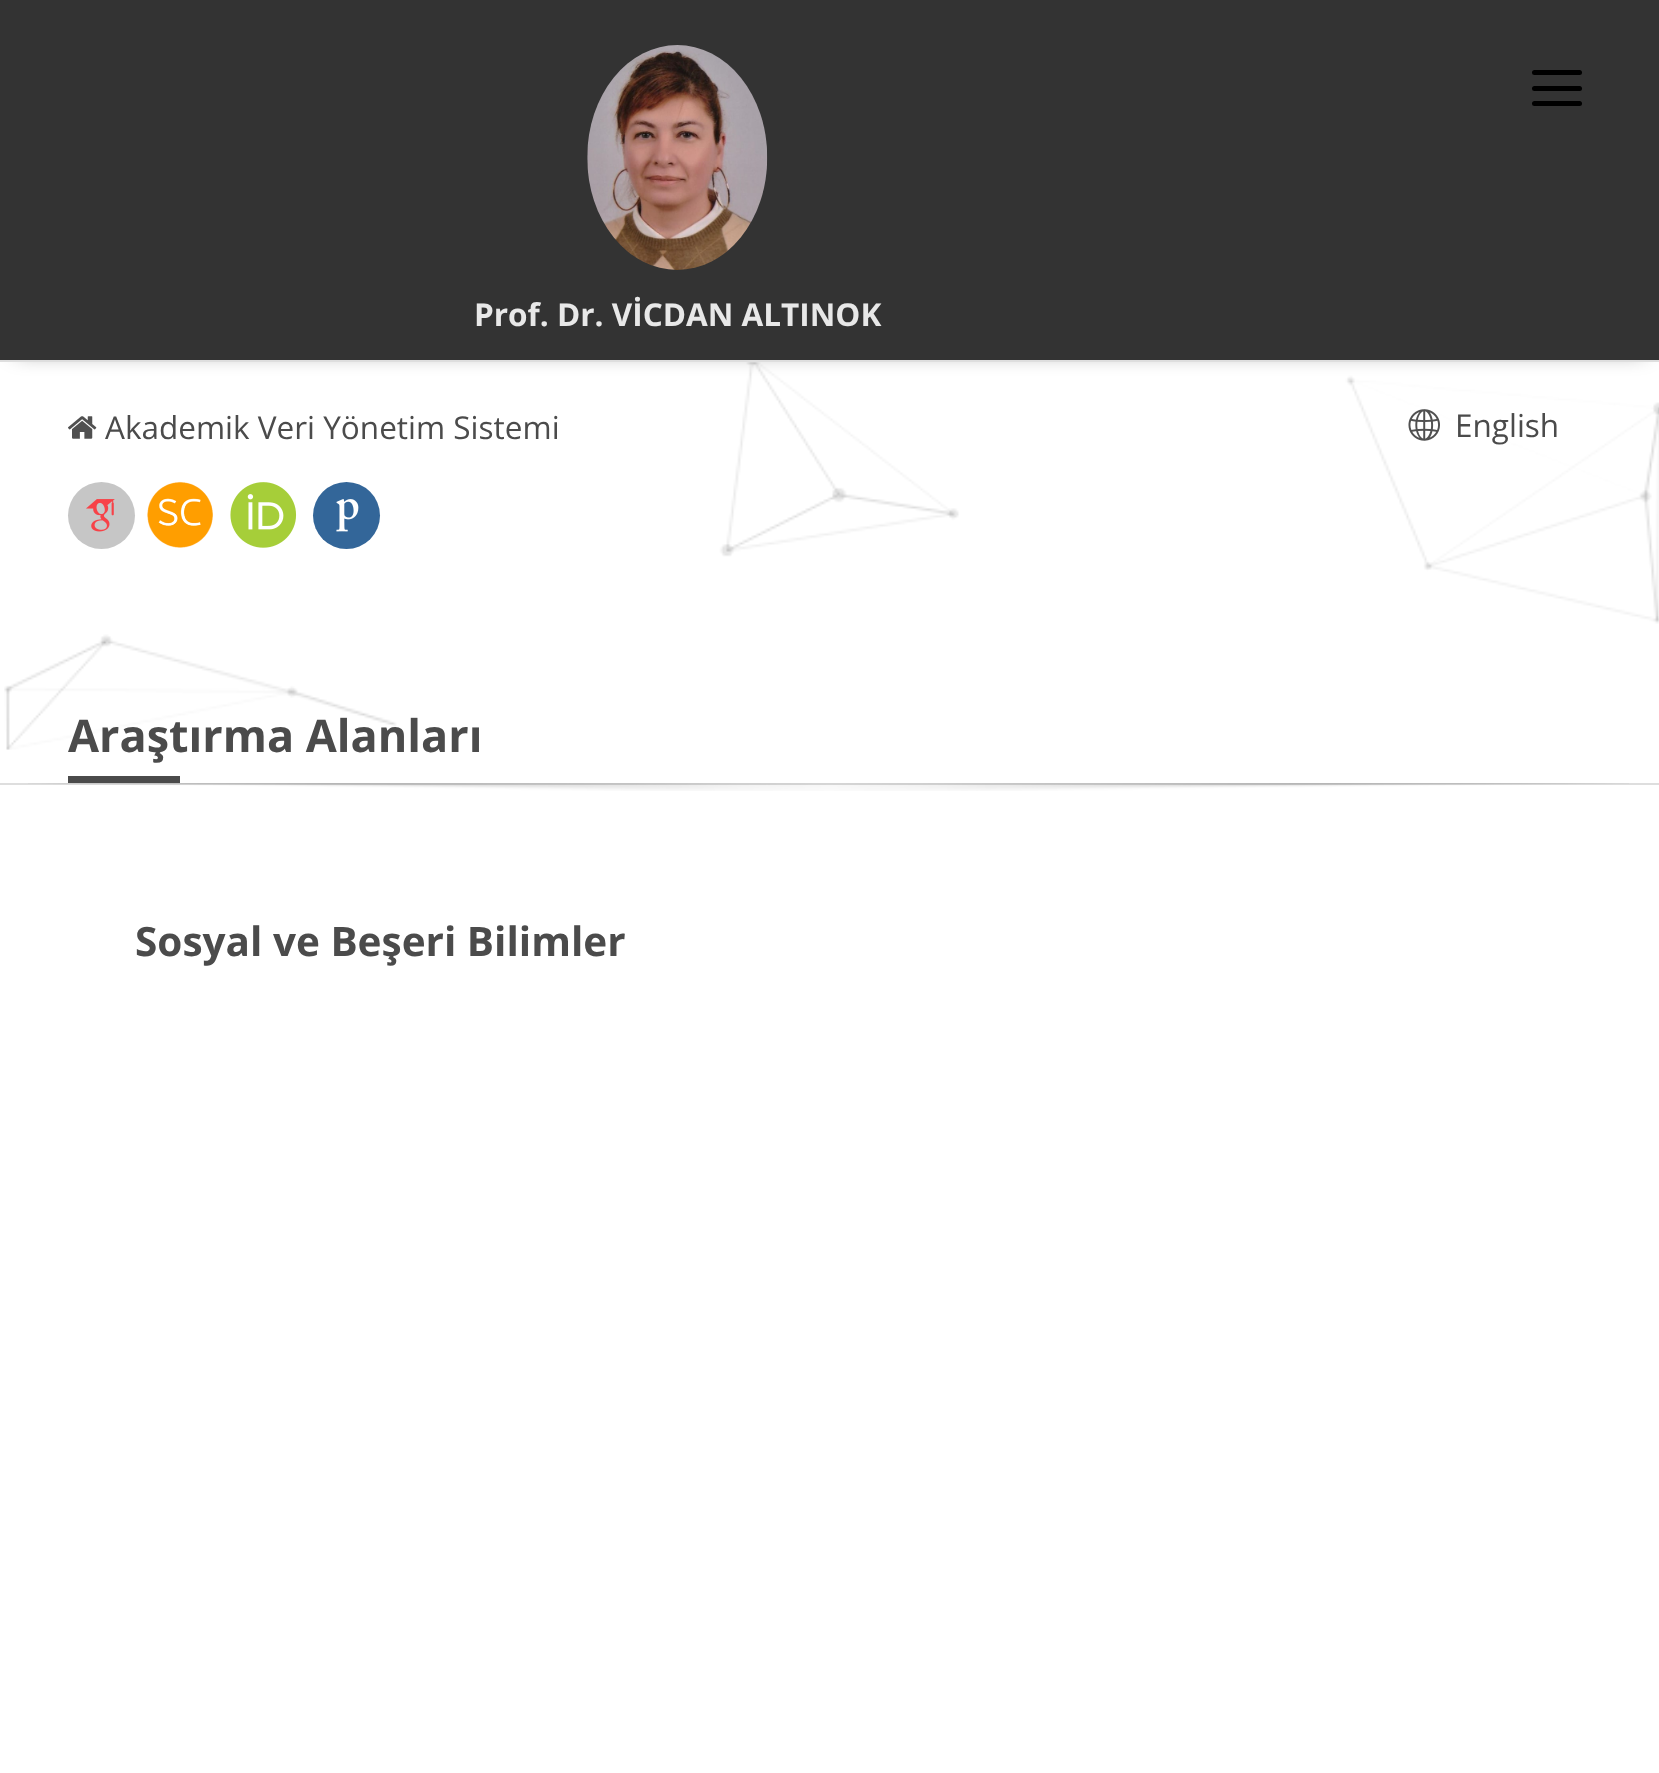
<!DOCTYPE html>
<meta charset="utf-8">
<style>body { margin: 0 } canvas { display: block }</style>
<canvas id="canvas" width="1659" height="1773"></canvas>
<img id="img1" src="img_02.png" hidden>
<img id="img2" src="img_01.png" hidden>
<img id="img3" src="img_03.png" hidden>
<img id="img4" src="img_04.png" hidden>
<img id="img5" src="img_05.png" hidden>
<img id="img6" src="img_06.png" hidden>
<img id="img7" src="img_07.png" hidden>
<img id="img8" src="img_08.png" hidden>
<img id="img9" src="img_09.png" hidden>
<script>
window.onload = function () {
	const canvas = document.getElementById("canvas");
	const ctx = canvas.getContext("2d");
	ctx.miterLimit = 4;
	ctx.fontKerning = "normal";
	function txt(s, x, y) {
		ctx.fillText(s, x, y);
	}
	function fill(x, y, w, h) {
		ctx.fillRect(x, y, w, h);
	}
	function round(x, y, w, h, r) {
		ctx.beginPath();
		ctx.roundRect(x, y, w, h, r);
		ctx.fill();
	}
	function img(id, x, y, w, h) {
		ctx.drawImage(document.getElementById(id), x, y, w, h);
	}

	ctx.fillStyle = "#FFFFFF";
	fill(0, 0, 1659, 1773);
	img("img1", 4, 362, 1655, 388);
	ctx.fillStyle = "rgba(0, 0, 0, 0.5)";
	ctx.filter = "blur(11px)";
	ctx.beginPath();
	ctx.rect(16, 20, 1629, 331);
	ctx.fill();
	ctx.filter = "none";
	ctx.fillStyle = "#333333";
	fill(0, 0, 1659, 360);
	ctx.fillStyle = "#DEDEDE";
	fill(0, 360, 1659, 2);
	ctx.fillStyle = "#000000";
	round(1532, 70, 50, 5, 2.5);
	round(1532, 86, 50, 5, 2.5);
	round(1532, 101, 50, 5, 2.5);
	img("img2", 587, 45, 181, 225);
	ctx.fillStyle = "#DEDEDE";
	fill(0, 783, 1659, 2);
	img("img3", 68, 416, 29, 23);
	img("img4", 1408, 409, 32, 32);
	ctx.fillStyle = "#C6C6C6";
	ctx.beginPath();
	ctx.arc(101.5, 515.5, 33.5, 0, Math.PI * 2);
	ctx.fill();
	img("img5", 86, 499, 29, 33);
	img("img6", 147, 481, 66, 67);
	img("img7", 230, 482, 67, 66);
	ctx.fillStyle = "#336699";
	ctx.beginPath();
	ctx.arc(346.5, 515.5, 33.5, 0, Math.PI * 2);
	ctx.fill();
	img("img8", 336, 499, 23, 33);
	ctx.fillStyle = "#4B4B4B";
	fill(68, 776, 112, 7);
	img("img9", 28, 783, 1601, 8);
	ctx.font = "bold 31.5px Open Sans";
	ctx.fillStyle = "#E8E8E8";
	txt("Prof. Dr. VİCDAN ALTINOK", 474, 326);
	ctx.font = "31.5px Open Sans";
	ctx.fillStyle = "#4B4B4B";
	txt("Akademik Veri Yönetim Sistemi", 105, 439);
	txt("English", 1455, 437);
	ctx.font = "bold 45px Open Sans";
	txt("Araştırma Alanları", 68, 752);
	ctx.font = "bold 40.5px Open Sans";
	txt("Sosyal ve Beşeri Bilimler", 135, 956);
};
</script>
